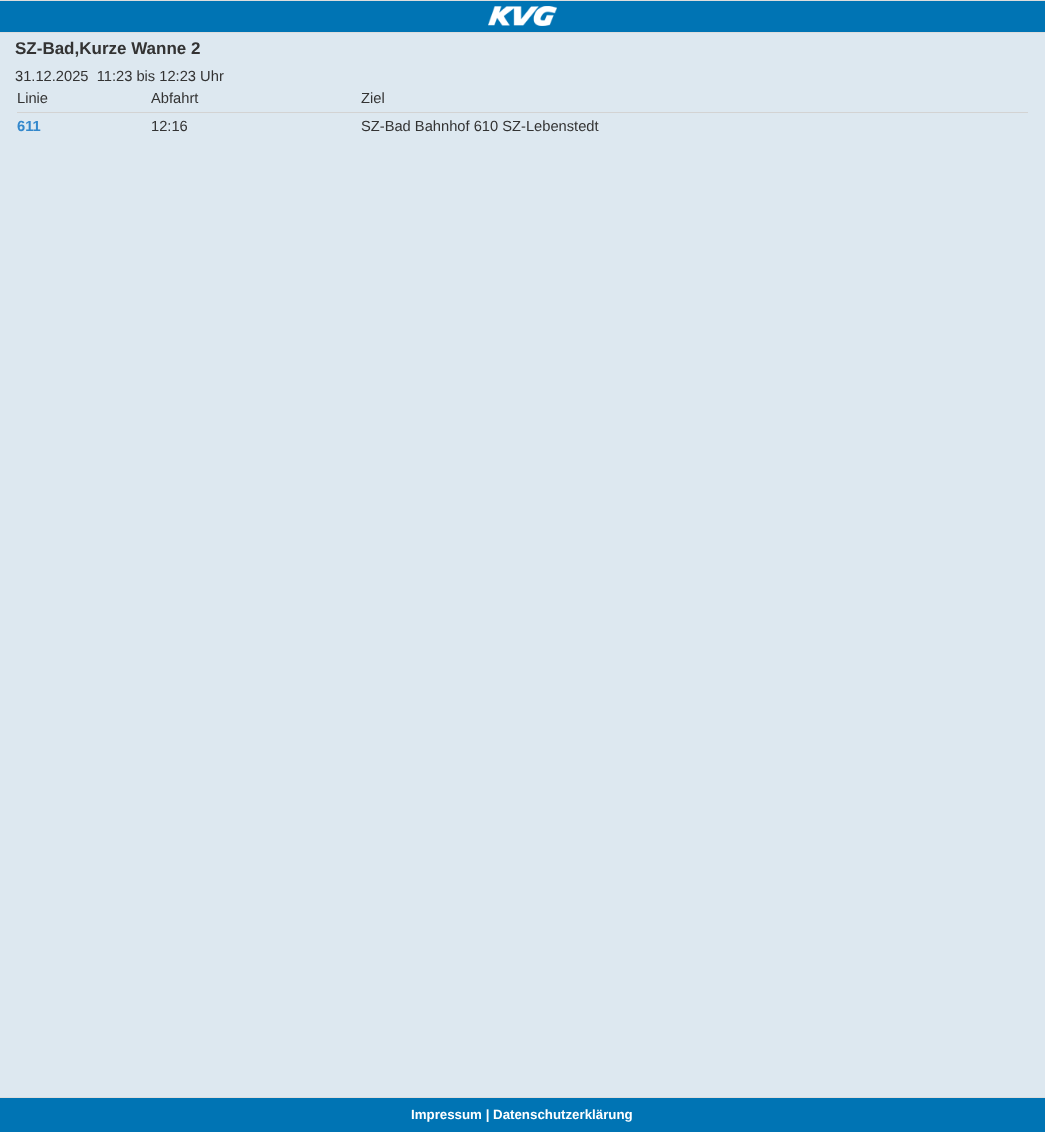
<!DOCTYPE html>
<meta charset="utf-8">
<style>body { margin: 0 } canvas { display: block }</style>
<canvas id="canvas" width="1045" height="1132"></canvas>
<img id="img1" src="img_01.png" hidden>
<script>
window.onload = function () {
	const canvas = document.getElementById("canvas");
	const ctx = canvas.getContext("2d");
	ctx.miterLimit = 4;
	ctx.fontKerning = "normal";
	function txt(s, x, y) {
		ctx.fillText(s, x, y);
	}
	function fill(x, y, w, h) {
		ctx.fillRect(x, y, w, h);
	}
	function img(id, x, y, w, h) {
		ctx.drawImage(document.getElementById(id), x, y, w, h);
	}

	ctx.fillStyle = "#DDE8F0";
	fill(0, 0, 1045, 1132);
	ctx.fillStyle = "#0074B4";
	fill(0, 1, 1045, 31);
	ctx.fillStyle = "#DDDDDD";
	fill(0, 0, 1045, 1);
	fill(0, 32, 1045, 1);
	img("img1", 488, 6, 69, 20);
	ctx.fillStyle = "#D3D3D3";
	fill(17, 112, 1011, 1);
	ctx.fillStyle = "#0074B4";
	fill(0, 1098, 1045, 34);
	ctx.fillStyle = "#DDDDDD";
	fill(0, 1097, 1045, 1);
	ctx.font = "bold 17px Liberation Sans";
	ctx.fillStyle = "#333333";
	txt("SZ-Bad,Kurze Wanne 2", 15, 54);
	ctx.font = "14.7px Liberation Sans";
	txt("31.12.2025  11:23 bis 12:23 Uhr", 15, 81);
	txt("Linie", 17, 103);
	txt("Abfahrt", 151, 103);
	txt("Ziel", 361, 103);
	ctx.font = "bold 14.7px Liberation Sans";
	ctx.fillStyle = "#3388CC";
	txt("611", 17, 131);
	ctx.font = "14.7px Liberation Sans";
	ctx.fillStyle = "#333333";
	txt("12:16", 151, 131);
	txt("SZ-Bad Bahnhof 610 SZ-Lebenstedt", 361, 131);
	ctx.font = "bold 13.3px Liberation Sans";
	ctx.fillStyle = "#FFFFFF";
	txt("Impressum | Datenschutzerklärung", 411, 1119);
};
</script>
